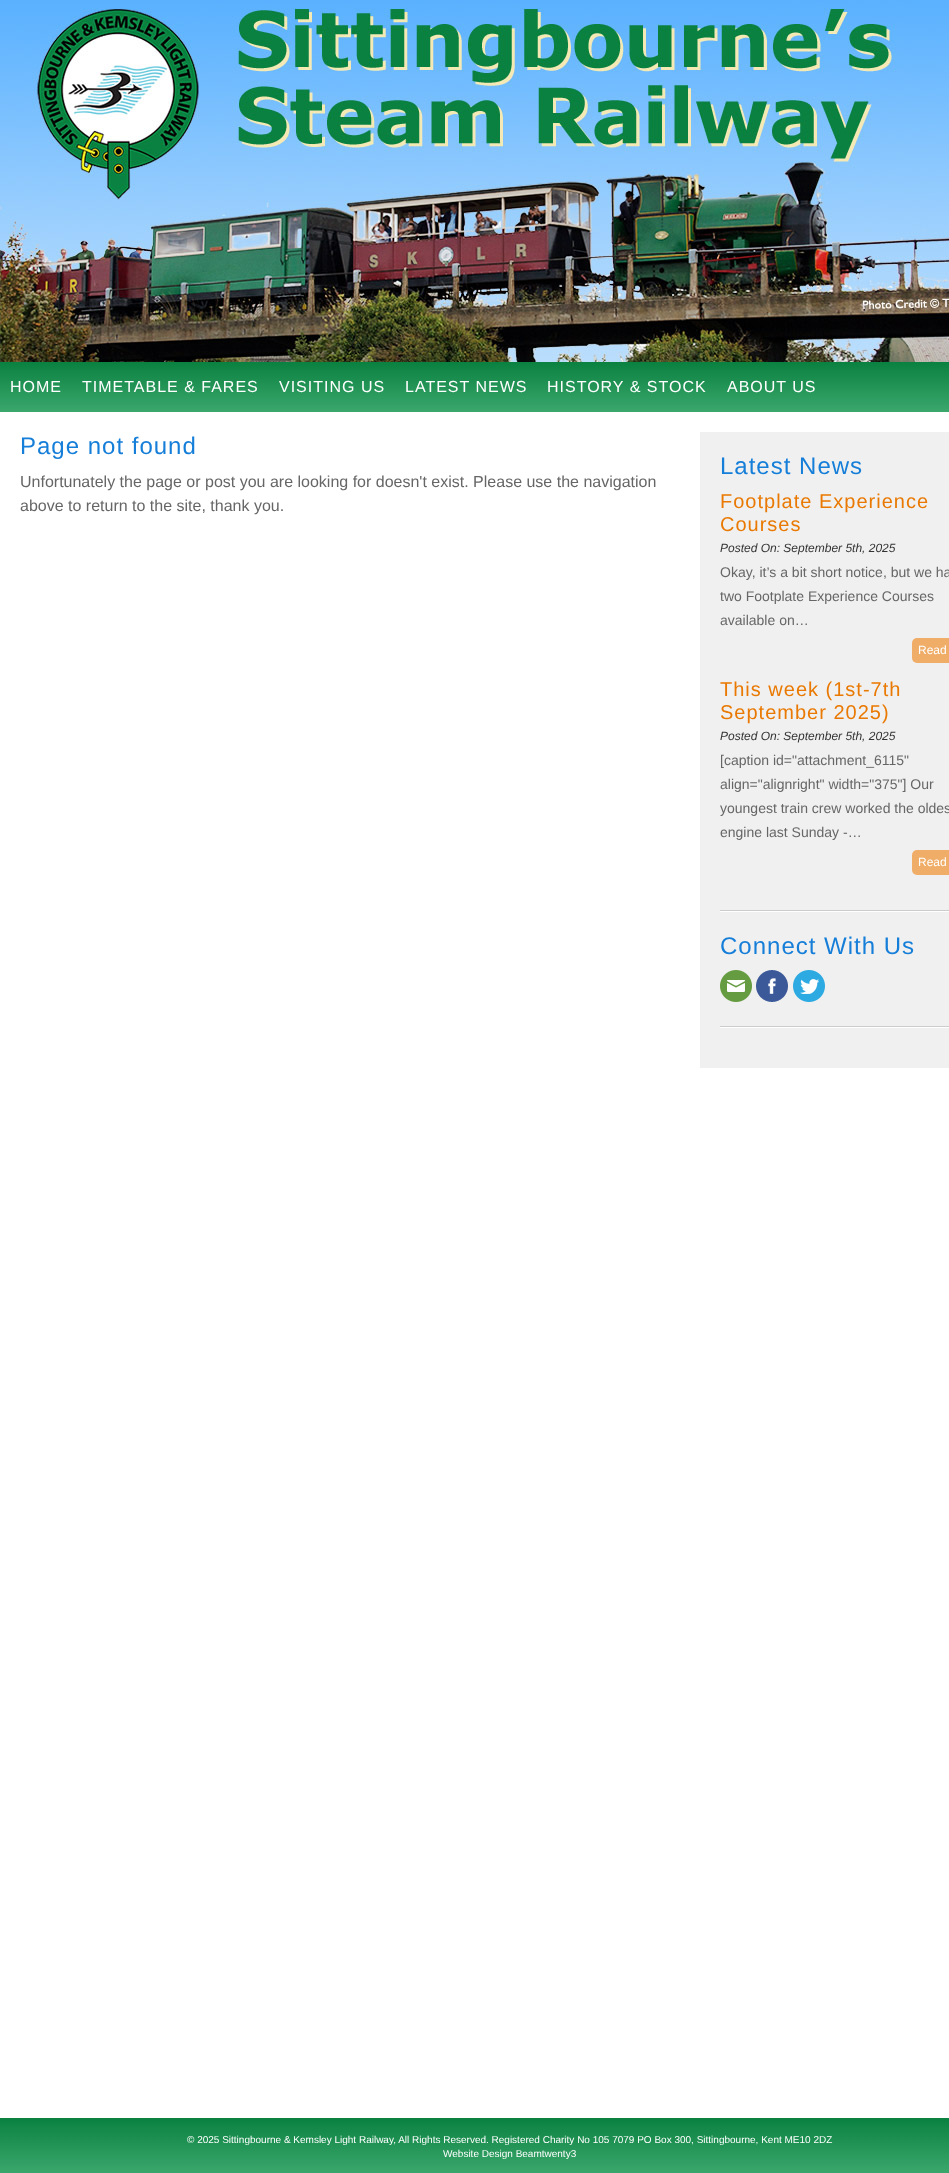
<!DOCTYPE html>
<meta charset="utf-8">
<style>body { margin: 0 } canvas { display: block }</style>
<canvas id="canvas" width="949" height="2173"></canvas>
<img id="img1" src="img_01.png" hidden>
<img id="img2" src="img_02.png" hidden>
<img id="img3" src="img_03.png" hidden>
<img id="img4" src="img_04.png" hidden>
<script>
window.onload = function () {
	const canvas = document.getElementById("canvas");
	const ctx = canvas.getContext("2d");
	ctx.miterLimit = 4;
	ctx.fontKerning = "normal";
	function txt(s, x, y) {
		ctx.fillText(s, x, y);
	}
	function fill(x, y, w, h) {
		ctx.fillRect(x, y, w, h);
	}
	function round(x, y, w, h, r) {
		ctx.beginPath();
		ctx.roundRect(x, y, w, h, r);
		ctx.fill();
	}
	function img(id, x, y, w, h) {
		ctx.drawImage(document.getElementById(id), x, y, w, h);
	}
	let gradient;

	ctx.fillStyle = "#FFFFFF";
	fill(0, 0, 949, 2173);
	img("img1", 0, 0, 949, 362);
	gradient = ctx.createLinearGradient(510, 362, 510, 412);
	gradient.addColorStop(0, "#0A8140");
	gradient.addColorStop(1, "#3BA76C");
	ctx.fillStyle = gradient;
	fill(0, 362, 949, 50);
	ctx.fillStyle = "#F0F0F0";
	fill(700, 432, 249, 636);
	ctx.fillStyle = "#F0AD67";
	round(912, 638, 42, 25, 5);
	round(912, 850, 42, 25, 5);
	ctx.fillStyle = "#CCCCCC";
	fill(720, 910, 229, 1);
	ctx.fillStyle = "#FFFFFF";
	fill(720, 911, 229, 1);
	img("img2", 720, 970, 32, 32);
	img("img3", 756, 970, 32, 32);
	img("img4", 793, 970, 32, 32);
	ctx.fillStyle = "#CCCCCC";
	fill(720, 1026, 229, 1);
	ctx.fillStyle = "#FFFFFF";
	fill(720, 1027, 229, 1);
	gradient = ctx.createLinearGradient(510, 2118, 510, 2173);
	gradient.addColorStop(0, "#0A8140");
	gradient.addColorStop(1, "#3BA76C");
	ctx.fillStyle = gradient;
	fill(0, 2118, 949, 55);
	ctx.letterSpacing = "1px";
	ctx.font = "16px Liberation Sans";
	ctx.fillStyle = "#FFFFFF";
	txt("HOME", 10, 392);
	txt("TIMETABLE & FARES", 82, 392);
	txt("VISITING US", 279, 392);
	txt("LATEST NEWS", 405, 392);
	txt("HISTORY & STOCK", 547, 392);
	txt("ABOUT US", 727, 392);
	ctx.font = "24px Liberation Sans";
	ctx.fillStyle = "#157ED9";
	txt("Page not found", 20, 454);
	ctx.letterSpacing = "0px";
	ctx.font = "16px Liberation Sans";
	ctx.fillStyle = "#666666";
	txt("Unfortunately the page or post you are looking for doesn't exist. Please use the navigation", 20, 487);
	txt("above to return to the site, thank you.", 20, 511);
	ctx.letterSpacing = "1px";
	ctx.font = "24px Liberation Sans";
	ctx.fillStyle = "#157ED9";
	txt("Latest News", 720, 474);
	ctx.font = "20px Liberation Sans";
	ctx.fillStyle = "#E97902";
	txt("Footplate Experience", 720, 508);
	txt("Courses", 720, 531);
	ctx.letterSpacing = "0px";
	ctx.font = "italic 12px Liberation Sans";
	ctx.fillStyle = "#333333";
	txt("Posted On: September 5th, 2025", 720, 552);
	ctx.font = "14px Liberation Sans";
	ctx.fillStyle = "#666666";
	txt("Okay, it’s a bit short notice, but we ha", 720, 577);
	txt("two Footplate Experience Courses", 720, 601);
	txt("available on…", 720, 625);
	ctx.font = "12px Liberation Sans";
	ctx.fillStyle = "#FFFFFF";
	txt("Read", 918, 654);
	ctx.letterSpacing = "1px";
	ctx.font = "20px Liberation Sans";
	ctx.fillStyle = "#E97902";
	txt("This week (1st-7th", 720, 696);
	txt("September 2025)", 720, 719);
	ctx.letterSpacing = "0px";
	ctx.font = "italic 12px Liberation Sans";
	ctx.fillStyle = "#333333";
	txt("Posted On: September 5th, 2025", 720, 740);
	ctx.font = "14px Liberation Sans";
	ctx.fillStyle = "#666666";
	txt("[caption id=\"attachment_6115\"", 720, 765);
	txt("align=\"alignright\" width=\"375\"] Our", 720, 789);
	txt("youngest train crew worked the oldes", 720, 813);
	txt("engine last Sunday -…", 720, 837);
	ctx.font = "12px Liberation Sans";
	ctx.fillStyle = "#FFFFFF";
	txt("Read", 918, 866);
	ctx.letterSpacing = "1px";
	ctx.font = "24px Liberation Sans";
	ctx.fillStyle = "#157ED9";
	txt("Connect With Us", 720, 954);
	ctx.letterSpacing = "0px";
	ctx.font = "10px Liberation Sans";
	ctx.fillStyle = "#FFFFFF";
	txt("© 2025 Sittingbourne & Kemsley Light Railway, All Rights Reserved. Registered Charity No 105 7079 PO Box 300, Sittingbourne, Kent ME10 2DZ", 187, 2143);
	txt("Website Design Beamtwenty3", 443, 2157);
};
</script>
